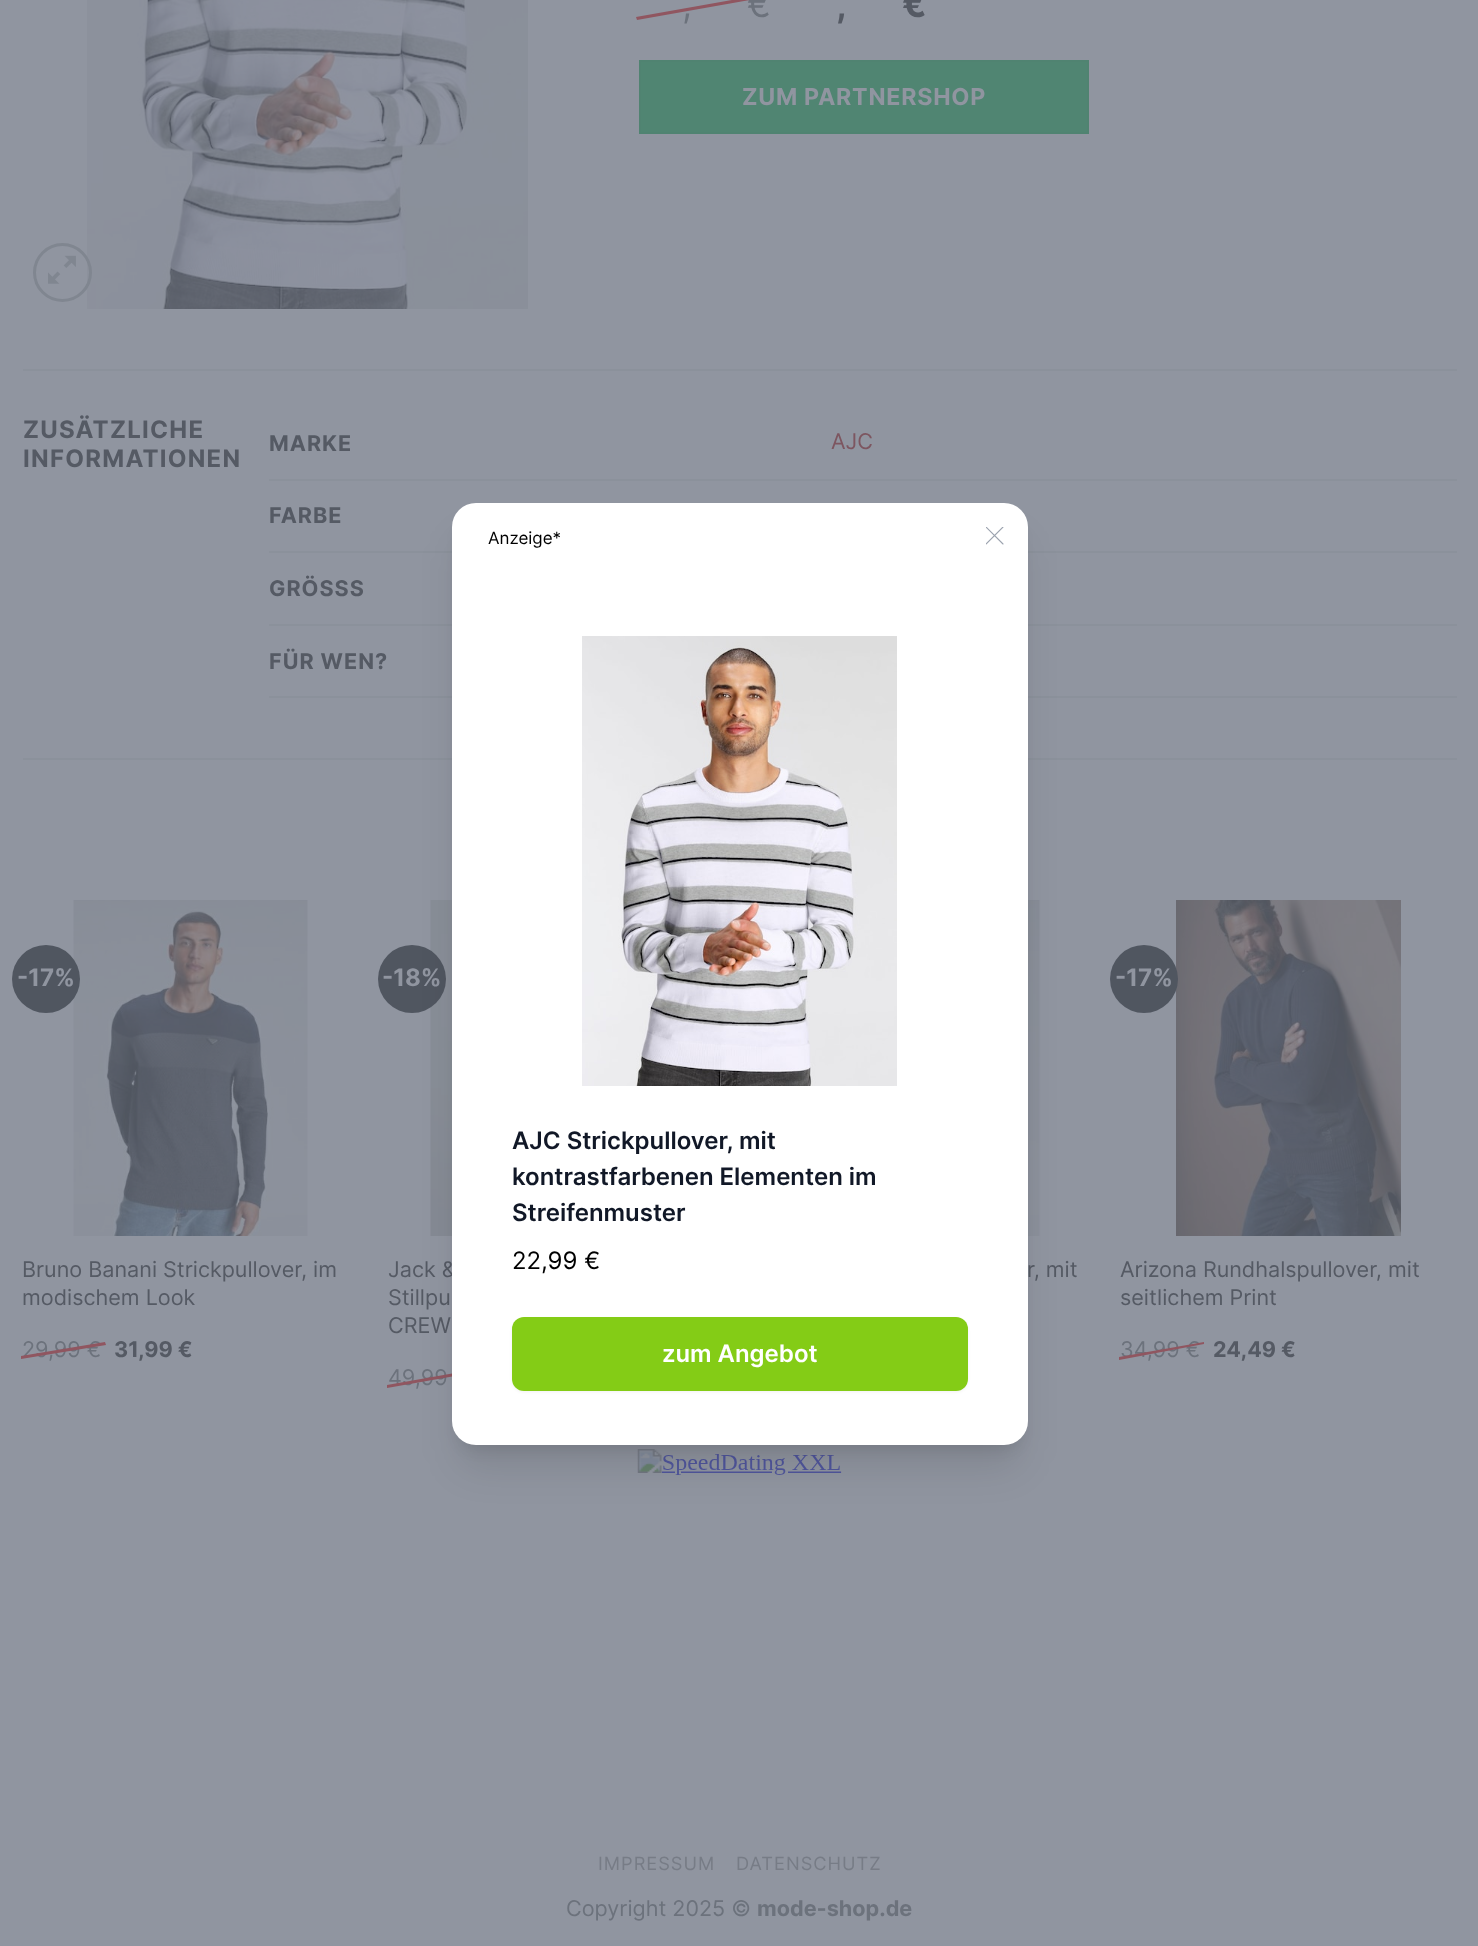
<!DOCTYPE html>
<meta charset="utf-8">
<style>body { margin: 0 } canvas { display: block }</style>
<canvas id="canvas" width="1478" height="1946"></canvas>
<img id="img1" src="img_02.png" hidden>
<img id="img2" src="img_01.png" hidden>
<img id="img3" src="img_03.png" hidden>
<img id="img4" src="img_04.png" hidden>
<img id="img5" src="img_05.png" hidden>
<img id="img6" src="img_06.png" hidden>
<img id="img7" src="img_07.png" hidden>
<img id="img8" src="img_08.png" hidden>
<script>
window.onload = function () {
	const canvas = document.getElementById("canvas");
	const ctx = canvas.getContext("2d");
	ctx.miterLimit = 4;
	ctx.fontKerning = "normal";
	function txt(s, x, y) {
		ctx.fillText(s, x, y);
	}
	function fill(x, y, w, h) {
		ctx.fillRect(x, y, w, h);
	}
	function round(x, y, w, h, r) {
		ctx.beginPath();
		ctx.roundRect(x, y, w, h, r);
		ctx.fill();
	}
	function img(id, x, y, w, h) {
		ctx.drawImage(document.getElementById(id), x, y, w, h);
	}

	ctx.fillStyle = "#9095A0";
	fill(0, 0, 1478, 1946);
	img("img1", 87, 0, 441, 309);
	ctx.beginPath();
	ctx.arc(62.5, 272.5, 28, 0, Math.PI * 2);
	ctx.strokeStyle = "#808690";
	ctx.lineWidth = 3;
	ctx.stroke();
	img("img2", 48, 255, 28, 29);
	ctx.fillStyle = "#508572";
	ctx.beginPath();
	ctx.rect(640, 61, 448, 72);
	ctx.fill();
	ctx.strokeStyle = "#508371";
	ctx.lineWidth = 2;
	ctx.stroke();
	ctx.fillStyle = "#8B919B";
	fill(23, 369, 1434, 2);
	fill(269, 479, 1188, 2);
	fill(269, 551, 183, 2);
	fill(1028, 551, 429, 2);
	fill(269, 624, 183, 2);
	fill(1028, 624, 429, 2);
	fill(269, 696, 183, 2);
	fill(1028, 696, 429, 2);
	fill(23, 758, 1434, 2);
	img("img3", 73, 900, 235, 336);
	ctx.fillStyle = "#505660";
	ctx.beginPath();
	ctx.arc(46, 979, 34, 0, Math.PI * 2);
	ctx.fill();
	img("img4", 430, 900, 22, 336);
	ctx.beginPath();
	ctx.arc(412, 979, 34, 0, Math.PI * 2);
	ctx.fill();
	img("img5", 1028, 900, 12, 336);
	img("img6", 1176, 900, 225, 336);
	ctx.beginPath();
	ctx.arc(1144, 979, 34, 0, Math.PI * 2);
	ctx.fill();
	img("img7", 637, 1449, 205, 26);
	ctx.font = "36px Inter";
	ctx.fillStyle = "#6C727C";
	txt(",", 682, 17);
	txt("€", 747, 17);
	ctx.fillStyle = "#905660";
	ctx.beginPath();
	ctx.moveTo(636, 17);
	ctx.lineTo(777, -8);
	ctx.lineTo(778, -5);
	ctx.lineTo(637, 20);
	ctx.closePath();
	ctx.fill();
	ctx.font = "bold 36px Inter";
	ctx.fillStyle = "#555A64";
	txt(",", 836, 17);
	txt("€", 902, 17);
	ctx.letterSpacing = "0.75px";
	ctx.font = "bold 23.25px Inter";
	ctx.fillStyle = "#9095A0";
	txt("ZUM PARTNERSHOP", 742, 105);
	ctx.letterSpacing = "1.25px";
	ctx.font = "bold 24px Inter";
	ctx.fillStyle = "#555A64";
	txt("ZUSÄTZLICHE", 23, 438);
	txt("INFORMATIONEN", 23, 467);
	ctx.letterSpacing = "1px";
	ctx.font = "bold 21.6px Inter";
	txt("MARKE", 269, 451);
	ctx.letterSpacing = "0px";
	ctx.font = "21.6px Inter";
	ctx.fillStyle = "#7D5660";
	txt("AJC", 831, 449);
	ctx.letterSpacing = "1px";
	ctx.font = "bold 21.6px Inter";
	ctx.fillStyle = "#555A64";
	txt("FARBE", 269, 523);
	txt("GRÖSSS", 269, 596);
	txt("FÜR WEN?", 269, 669);
	ctx.letterSpacing = "0px";
	ctx.font = "bold 24px Inter";
	ctx.fillStyle = "#9095A0";
	txt("-17%", 17, 986);
	ctx.font = "21.6px Inter";
	ctx.fillStyle = "#555A64";
	txt("Bruno Banani Strickpullover, im", 22, 1277);
	txt("modischem Look", 22, 1305);
	ctx.fillStyle = "#6C727C";
	txt("29,99 €", 22, 1357);
	ctx.fillStyle = "#905660";
	ctx.beginPath();
	ctx.moveTo(21, 1356);
	ctx.lineTo(105, 1342);
	ctx.lineTo(106, 1345);
	ctx.lineTo(21, 1359);
	ctx.closePath();
	ctx.fill();
	ctx.font = "bold 21.6px Inter";
	ctx.fillStyle = "#555A64";
	txt("31,99 €", 114, 1357);
	ctx.font = "bold 24px Inter";
	ctx.fillStyle = "#9095A0";
	txt("-18%", 382, 986);
	ctx.font = "21.6px Inter";
	ctx.fillStyle = "#555A64";
	txt("Jack &", 388, 1277);
	txt("Stillpu", 388, 1305);
	txt("CREW", 388, 1333);
	ctx.fillStyle = "#6C727C";
	txt("49,99", 388, 1385);
	ctx.fillStyle = "#905660";
	ctx.beginPath();
	ctx.moveTo(387, 1385);
	ctx.lineTo(472, 1370);
	ctx.lineTo(472, 1373);
	ctx.lineTo(387, 1388);
	ctx.closePath();
	ctx.fill();
	ctx.fillStyle = "#555A64";
	txt("r, mit", 1027, 1277);
	ctx.font = "bold 24px Inter";
	ctx.fillStyle = "#9095A0";
	txt("-17%", 1115, 986);
	ctx.font = "21.6px Inter";
	ctx.fillStyle = "#555A64";
	txt("Arizona Rundhalspullover, mit", 1120, 1277);
	txt("seitlichem Print", 1120, 1305);
	ctx.fillStyle = "#6C727C";
	txt("34,99 €", 1120, 1357);
	ctx.fillStyle = "#905660";
	ctx.beginPath();
	ctx.moveTo(1119, 1357);
	ctx.lineTo(1204, 1342);
	ctx.lineTo(1204, 1344);
	ctx.lineTo(1119, 1360);
	ctx.closePath();
	ctx.fill();
	ctx.font = "bold 21.6px Inter";
	ctx.fillStyle = "#555A64";
	txt("24,49 €", 1213, 1357);
	ctx.letterSpacing = "1px";
	ctx.font = "18.25px Inter";
	ctx.fillStyle = "#777C86";
	txt("IMPRESSUM", 598, 1870);
	txt("DATENSCHUTZ", 736, 1870);
	ctx.letterSpacing = "0px";
	ctx.font = "21.6px Inter";
	ctx.fillStyle = "#6C727C";
	txt("Copyright 2025 ©", 566, 1916);
	ctx.font = "bold 21.6px Inter";
	txt("mode-shop.de", 757, 1916);
	ctx.fillStyle = "rgba(0, 0, 0, 0.1)";
	ctx.filter = "blur(7.5px)";
	ctx.beginPath();
	ctx.roundRect(461, 524, 558, 924, 15);
	ctx.fill();
	ctx.filter = "none";
	ctx.filter = "blur(19px)";
	ctx.beginPath();
	ctx.roundRect(459, 540, 561, 927, 17);
	ctx.fill();
	ctx.filter = "none";
	ctx.fillStyle = "#FFFFFF";
	round(452, 503, 576, 942, 24);
	ctx.font = "17px Inter";
	ctx.fillStyle = "#000000";
	txt("Anzeige*", 488, 544);
	ctx.save();
	ctx.beginPath();
	ctx.rect(986, 527, 18, 18);
	ctx.clip();
	ctx.beginPath();
	ctx.moveTo(986, 544);
	ctx.lineTo(1003, 527);
	ctx.moveTo(986, 527);
	ctx.lineTo(1003, 544);
	ctx.strokeStyle = "#9CA3AF";
	ctx.lineWidth = 1.1;
	ctx.lineCap = "round";
	ctx.lineJoin = "round";
	ctx.stroke();
	ctx.restore();
	img("img8", 582, 636, 315, 450);
	ctx.font = "600 24px Inter";
	ctx.fillStyle = "#111827";
	txt("AJC Strickpullover, mit", 512, 1149);
	txt("kontrastfarbenen Elementen im", 512, 1185);
	txt("Streifenmuster", 512, 1221);
	ctx.font = "24px Inter";
	ctx.fillStyle = "#000000";
	txt("22,99 €", 512, 1269);
	ctx.fillStyle = "rgba(0, 0, 0, 0.05)";
	ctx.filter = "blur(1.5px)";
	ctx.beginPath();
	ctx.roundRect(512, 1319, 456, 73, 12);
	ctx.fill();
	ctx.filter = "none";
	ctx.fillStyle = "#84CC16";
	round(512, 1317, 456, 74, 12);
	ctx.font = "600 24px Inter";
	ctx.fillStyle = "#FFFFFF";
	txt("zum Angebot", 662, 1362);
};
</script>
